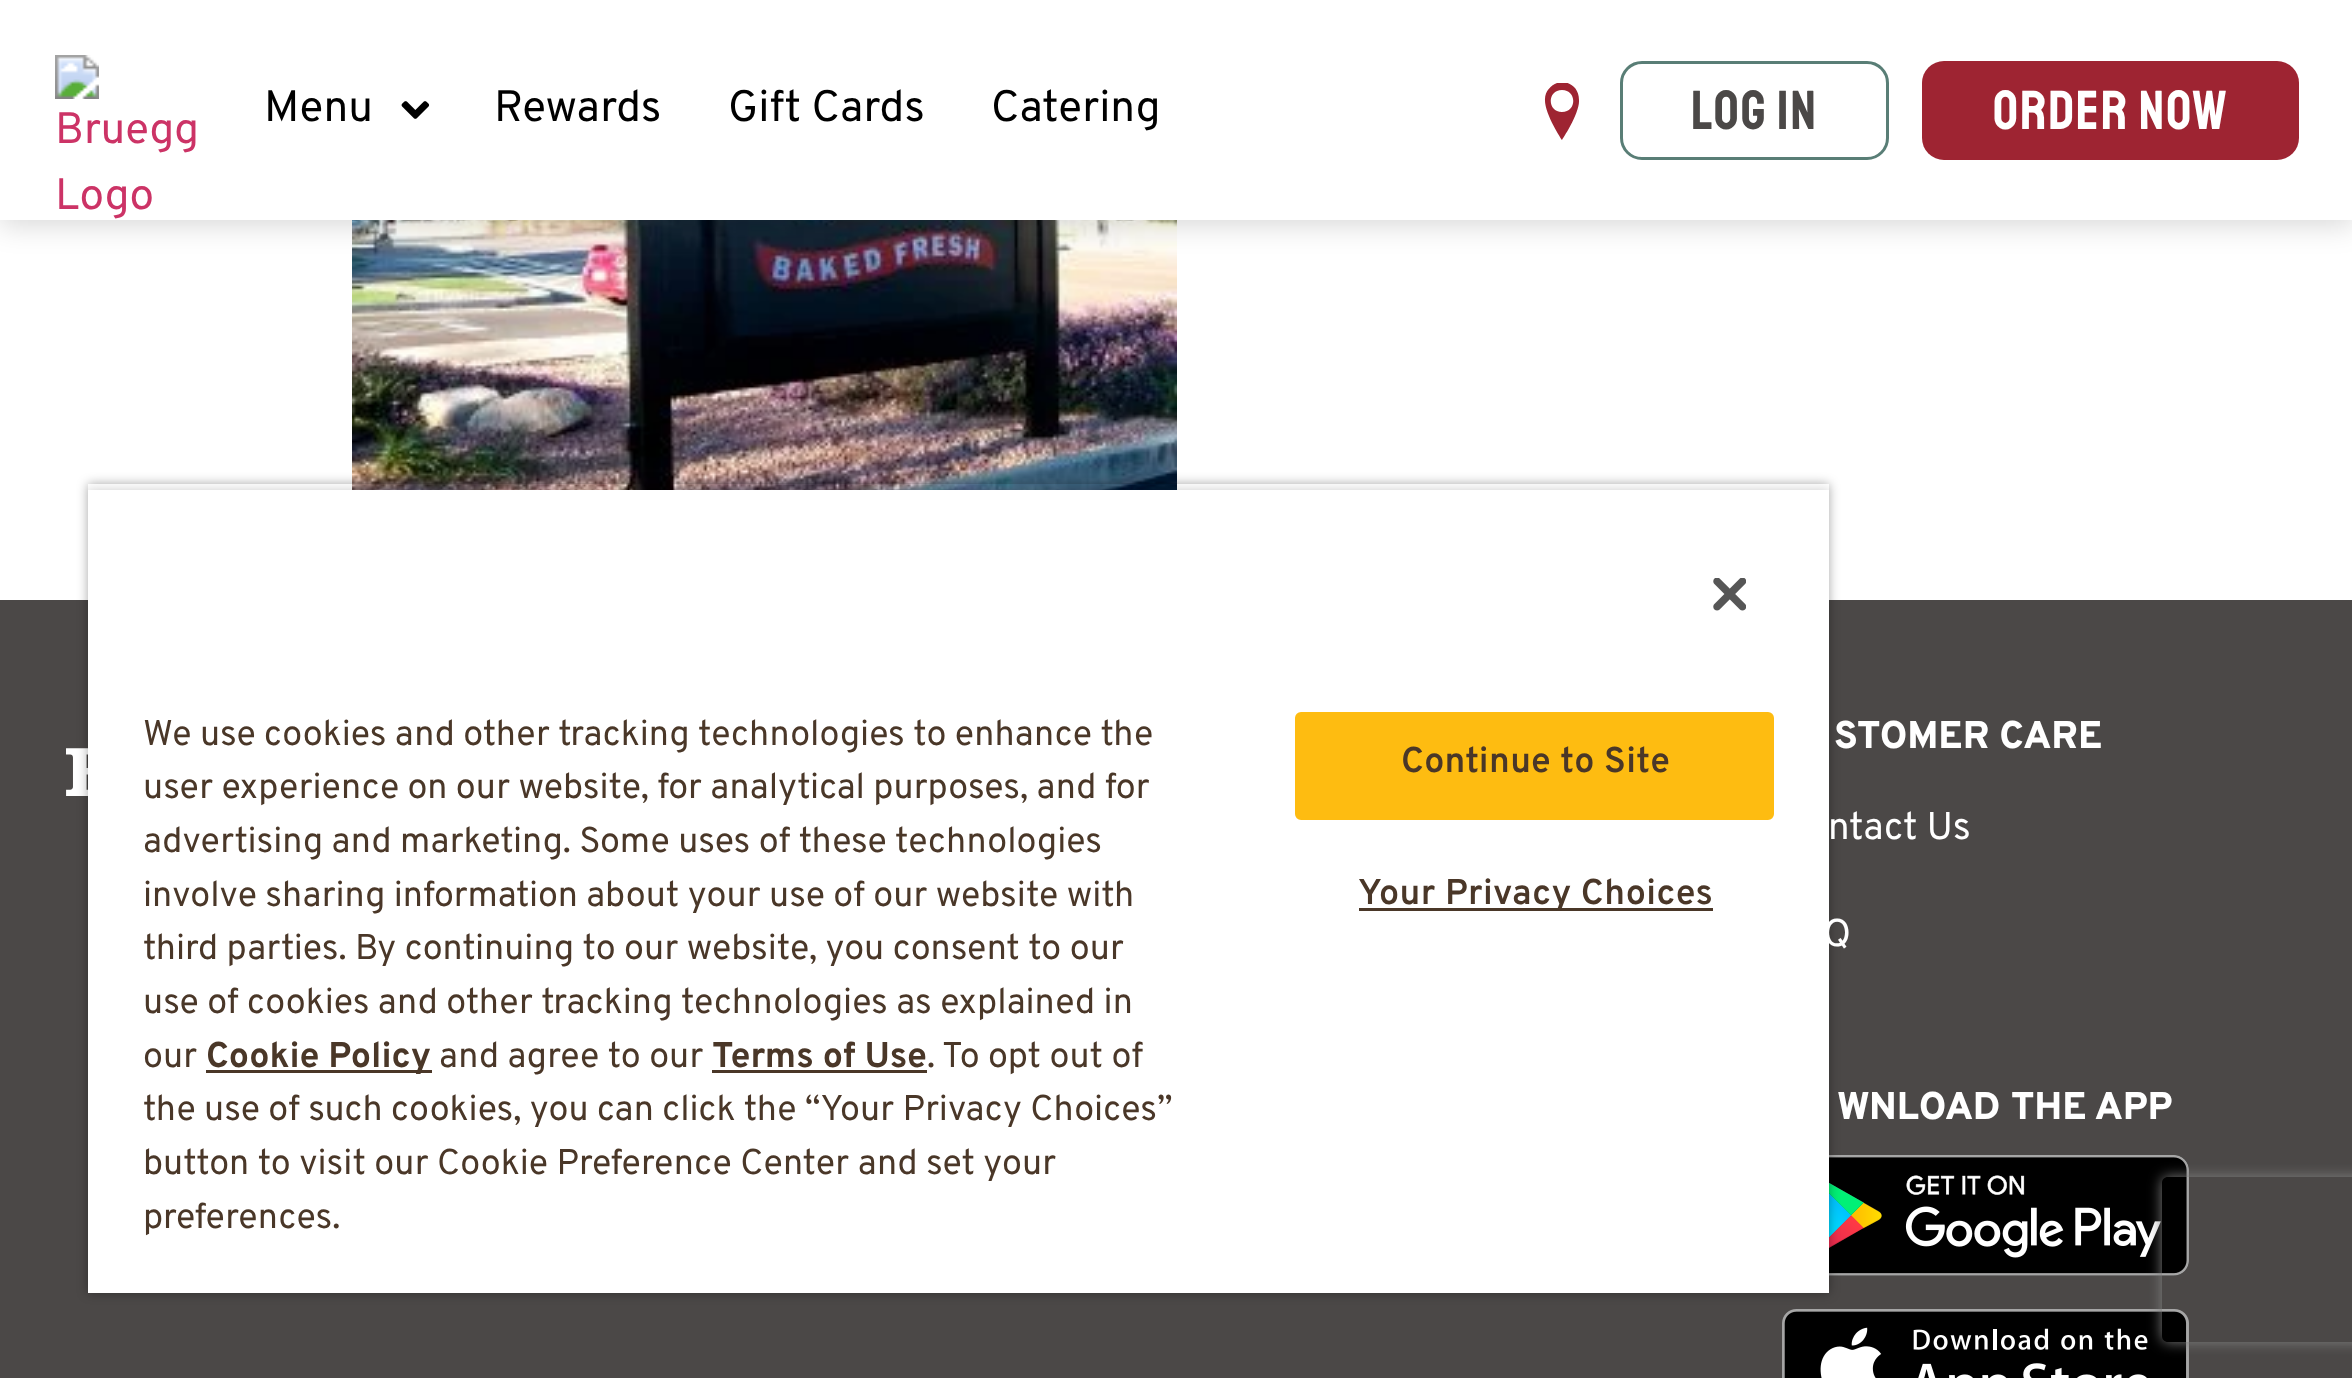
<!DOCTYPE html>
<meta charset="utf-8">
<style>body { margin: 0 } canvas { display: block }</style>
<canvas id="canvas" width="2352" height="1378"></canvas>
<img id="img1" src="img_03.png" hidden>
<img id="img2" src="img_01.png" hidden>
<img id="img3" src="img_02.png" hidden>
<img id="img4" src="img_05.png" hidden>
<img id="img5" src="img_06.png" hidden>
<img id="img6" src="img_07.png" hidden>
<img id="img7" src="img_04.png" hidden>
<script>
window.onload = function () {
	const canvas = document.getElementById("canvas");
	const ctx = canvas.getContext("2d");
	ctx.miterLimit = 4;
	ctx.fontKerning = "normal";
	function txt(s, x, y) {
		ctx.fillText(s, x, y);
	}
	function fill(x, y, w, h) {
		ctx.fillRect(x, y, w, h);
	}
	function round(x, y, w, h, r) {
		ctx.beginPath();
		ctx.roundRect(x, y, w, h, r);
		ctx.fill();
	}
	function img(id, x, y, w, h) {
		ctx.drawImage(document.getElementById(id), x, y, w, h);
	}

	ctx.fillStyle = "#FFFFFF";
	fill(0, 0, 2352, 1378);
	img("img1", 352, 220, 825, 270);
	ctx.fillStyle = "rgba(0, 0, 0, 0.15)";
	ctx.filter = "blur(14px)";
	ctx.beginPath();
	ctx.rect(0, 6, 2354, 220);
	ctx.fill();
	ctx.filter = "none";
	ctx.fillStyle = "#FFFFFF";
	fill(0, 0, 2352, 220);
	img("img2", 55, 55, 141, 164);
	img("img3", 401, 101, 29, 18);
	ctx.save();
	ctx.beginPath();
	ctx.rect(1537, 83, 50, 57);
	ctx.clip();
	ctx.fillStyle = "#9E2432";
	ctx.beginPath();
	ctx.moveTo(1562, 82);
	ctx.bezierCurveTo(1555, 82, 1545, 89, 1545, 99);
	ctx.bezierCurveTo(1544, 113, 1562, 140, 1562, 140);
	ctx.bezierCurveTo(1562, 140, 1580, 113, 1579, 100);
	ctx.bezierCurveTo(1579, 87, 1569, 82, 1562, 82);
	ctx.closePath();
	ctx.moveTo(1562, 112);
	ctx.bezierCurveTo(1547, 112, 1547, 90, 1562, 90);
	ctx.bezierCurveTo(1577, 90, 1577, 112, 1562, 112);
	ctx.closePath();
	ctx.fill();
	ctx.restore();
	ctx.beginPath();
	ctx.roundRect(1621.5, 62.5, 266, 96, 20.5);
	ctx.strokeStyle = "#597E76";
	ctx.lineWidth = 3;
	ctx.stroke();
	ctx.fillStyle = "#9E2432";
	round(1922, 61, 377, 99, 22);
	ctx.fillStyle = "#4B4847";
	fill(0, 600, 2352, 778);
	img("img4", 66, 748, 22, 48);
	img("img5", 1829, 1155, 360, 121);
	img("img6", 1782, 1309, 407, 69);
	ctx.save();
	ctx.beginPath();
	ctx.moveTo(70, 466);
	ctx.lineTo(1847, 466);
	ctx.lineTo(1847, 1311);
	ctx.lineTo(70, 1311);
	ctx.closePath();
	ctx.moveTo(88, 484);
	ctx.lineTo(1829, 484);
	ctx.lineTo(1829, 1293);
	ctx.lineTo(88, 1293);
	ctx.closePath();
	ctx.clip("evenodd");
	ctx.fillStyle = "rgba(0, 0, 0, 0.35)";
	ctx.filter = "blur(5.5px)";
	ctx.beginPath();
	ctx.rect(88, 484, 1741, 809);
	ctx.fill();
	ctx.filter = "none";
	ctx.restore();
	ctx.save();
	ctx.beginPath();
	ctx.rect(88, 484, 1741, 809);
	ctx.clip();
	ctx.fillStyle = "rgba(0, 0, 0, 0.2)";
	ctx.filter = "blur(5.5px)";
	ctx.beginPath();
	ctx.rect(88, 490, 1741, 803);
	ctx.fill();
	ctx.filter = "none";
	ctx.restore();
	ctx.fillStyle = "#FFFFFF";
	fill(88, 490, 1741, 803);
	img("img7", 1713, 578, 33, 33);
	ctx.fillStyle = "#4A3728";
	fill(206, 1070, 226, 3);
	fill(712, 1070, 215, 3);
	ctx.fillStyle = "#FEBC11";
	ctx.beginPath();
	ctx.roundRect(1296.5, 713.5, 476, 105, 4.5);
	ctx.fill();
	ctx.strokeStyle = "#FEBC11";
	ctx.stroke();
	ctx.fillStyle = "#4A3728";
	fill(1359, 908, 354, 3);
	ctx.save();
	ctx.beginPath();
	ctx.moveTo(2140, 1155);
	ctx.lineTo(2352, 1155);
	ctx.lineTo(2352, 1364);
	ctx.lineTo(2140, 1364);
	ctx.closePath();
	ctx.moveTo(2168, 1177);
	ctx.lineTo(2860, 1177);
	ctx.bezierCurveTo(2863.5, 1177, 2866, 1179.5, 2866, 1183);
	ctx.lineTo(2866, 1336);
	ctx.bezierCurveTo(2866, 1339.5, 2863.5, 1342, 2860, 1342);
	ctx.lineTo(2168, 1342);
	ctx.bezierCurveTo(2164.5, 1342, 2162, 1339.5, 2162, 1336);
	ctx.lineTo(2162, 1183);
	ctx.bezierCurveTo(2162, 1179.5, 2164.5, 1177, 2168, 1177);
	ctx.closePath();
	ctx.clip("evenodd");
	ctx.fillStyle = "#808080";
	ctx.filter = "blur(7px)";
	ctx.beginPath();
	ctx.roundRect(2162, 1177, 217, 165, 6);
	ctx.fill();
	ctx.filter = "none";
	ctx.restore();
	ctx.font = "44px Overpass";
	ctx.fillStyle = "#000000";
	txt("Menu", 264, 121);
	txt("Rewards", 494, 121);
	txt("Gift Cards", 728, 121);
	txt("Catering", 991, 121);
	ctx.letterSpacing = "1.75px";
	ctx.font = "55px Staatliches";
	ctx.fillStyle = "#4B4847";
	txt("LOG IN", 1691, 129);
	ctx.fillStyle = "#FFFFFF";
	txt("ORDER NOW", 1993, 129);
	ctx.letterSpacing = "0px";
	ctx.font = "35.75px Overpass";
	ctx.fillStyle = "#4A3728";
	txt("We use cookies and other tracking technologies to enhance the", 143, 745);
	txt("user experience on our website, for analytical purposes, and for", 143, 798);
	txt("advertising and marketing. Some uses of these technologies", 143, 852);
	txt("involve sharing information about your use of our website with", 143, 906);
	txt("third parties. By continuing to our website, you consent to our", 143, 959);
	txt("use of cookies and other tracking technologies as explained in", 143, 1013);
	txt("our", 143, 1067);
	ctx.font = "bold 35.75px Overpass";
	txt("Cookie Policy", 206, 1067);
	ctx.font = "35.75px Overpass";
	txt("and agree to our", 439, 1067);
	ctx.font = "bold 35.75px Overpass";
	txt("Terms of Use", 712, 1067);
	ctx.font = "35.75px Overpass";
	txt(". To opt out of", 927, 1067);
	txt("the use of such cookies, you can click the “Your Privacy Choices”", 143, 1120);
	txt("button to visit our Cookie Preference Center and set your", 143, 1174);
	txt("preferences.", 143, 1228);
	ctx.letterSpacing = "0.4px";
	ctx.font = "600 35.75px Overpass";
	txt("Continue to Site", 1401, 772);
	txt("Your Privacy Choices", 1358, 904);
	ctx.letterSpacing = "0px";
	ctx.font = "800 38.5px Overpass";
	ctx.fillStyle = "#FFFFFF";
	txt("STOMER CARE", 1834, 748);
	ctx.font = "38.5px Overpass";
	txt("ntact Us", 1828, 839);
	txt("Q", 1823, 946);
	ctx.font = "800 38.5px Overpass";
	txt("WNLOAD THE APP", 1837, 1119);
};
</script>
